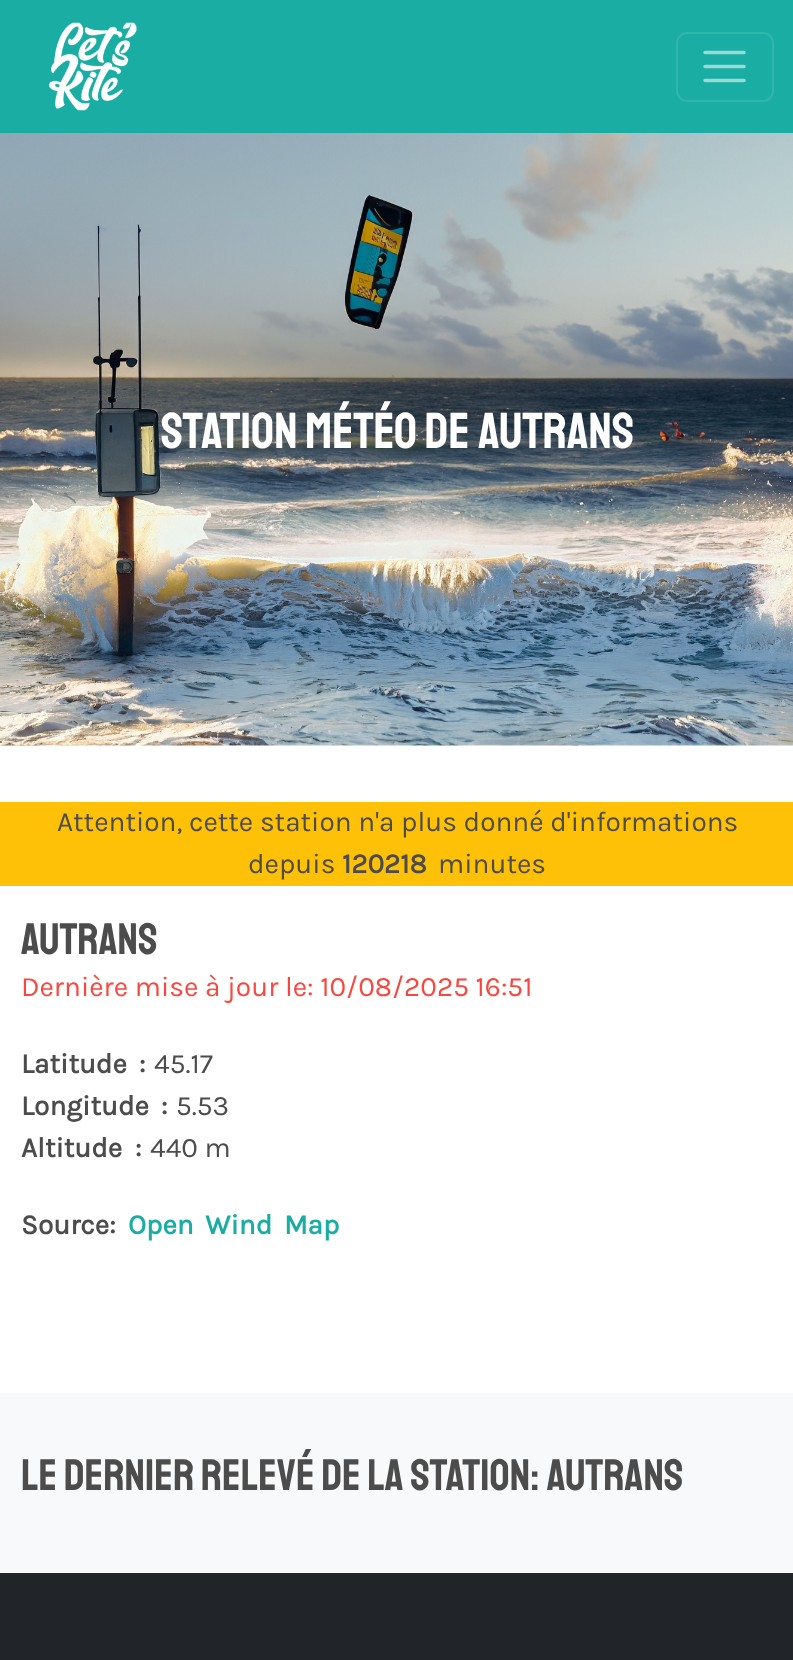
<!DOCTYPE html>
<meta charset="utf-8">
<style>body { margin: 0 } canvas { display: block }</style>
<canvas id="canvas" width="793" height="1660"></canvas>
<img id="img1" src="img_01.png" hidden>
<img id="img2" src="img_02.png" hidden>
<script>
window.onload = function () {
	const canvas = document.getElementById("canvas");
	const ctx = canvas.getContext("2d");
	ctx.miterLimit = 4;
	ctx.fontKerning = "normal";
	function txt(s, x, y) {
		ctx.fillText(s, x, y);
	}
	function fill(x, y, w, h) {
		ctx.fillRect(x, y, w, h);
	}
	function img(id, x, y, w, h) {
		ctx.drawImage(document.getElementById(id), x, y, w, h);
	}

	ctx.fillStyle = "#FFFFFF";
	fill(0, 0, 793, 1660);
	ctx.fillStyle = "#1AADA3";
	fill(0, 0, 793, 133);
	img("img1", 49, 22, 88, 89);
	ctx.beginPath();
	ctx.roundRect(677, 33, 96, 68, 10);
	ctx.strokeStyle = "#31B5AC";
	ctx.lineWidth = 2;
	ctx.stroke();
	ctx.beginPath();
	ctx.moveTo(705, 52.5);
	ctx.lineTo(744, 52.5);
	ctx.moveTo(705, 66.5);
	ctx.lineTo(744, 66.5);
	ctx.moveTo(705, 80.5);
	ctx.lineTo(744, 80.5);
	ctx.strokeStyle = "#98DAD6";
	ctx.lineWidth = 3.5;
	ctx.lineCap = "round";
	ctx.stroke();
	img("img2", 0, 133, 793, 613);
	ctx.fillStyle = "#FFC107";
	fill(0, 802, 793, 84);
	ctx.fillStyle = "#F8F9FA";
	fill(0, 1393, 793, 180);
	ctx.fillStyle = "#212529";
	fill(0, 1573, 793, 87);
	ctx.font = "italic 50.5px Staatliches";
	ctx.fillStyle = "#FFFFFF";
	txt("Station météo de Autrans", 161, 448);
	ctx.font = "italic 28px Karla";
	ctx.fillStyle = "#4C4C4C";
	txt("Attention, cette station n'a plus donné d'informations", 57, 831);
	txt("depuis", 248, 873);
	ctx.font = "italic bold 28px Karla";
	txt("120218", 342, 873);
	ctx.font = "italic 28px Karla";
	txt("minutes", 438, 873);
	ctx.font = "italic 44.25px Staatliches";
	txt("Autrans", 21, 954);
	ctx.font = "italic 28px Karla";
	ctx.fillStyle = "#FA473E";
	txt("Dernière mise à jour le: 10/08/2025 16:51", 21, 996);
	ctx.font = "italic bold 28px Karla";
	ctx.fillStyle = "#4C4C4C";
	txt("Latitude", 21, 1073);
	txt(":", 139, 1073);
	ctx.font = "italic 28px Karla";
	txt("45.17", 154, 1073);
	ctx.font = "italic bold 28px Karla";
	txt("Longitude", 21, 1115);
	txt(":", 161, 1115);
	ctx.font = "italic 28px Karla";
	txt("5.53", 176, 1115);
	ctx.font = "italic bold 28px Karla";
	txt("Altitude", 21, 1157);
	txt(":", 135, 1157);
	ctx.font = "italic 28px Karla";
	txt("440 m", 150, 1157);
	ctx.font = "italic bold 28px Karla";
	txt("Source:", 21, 1234);
	ctx.wordSpacing = "5px";
	ctx.fillStyle = "#1AADA3";
	txt("Open Wind Map", 128, 1234);
	ctx.wordSpacing = "0px";
	ctx.font = "italic 44.25px Staatliches";
	ctx.fillStyle = "#4C4C4C";
	txt("Le dernier relevé de la station: Autrans", 21, 1490);
};
</script>
